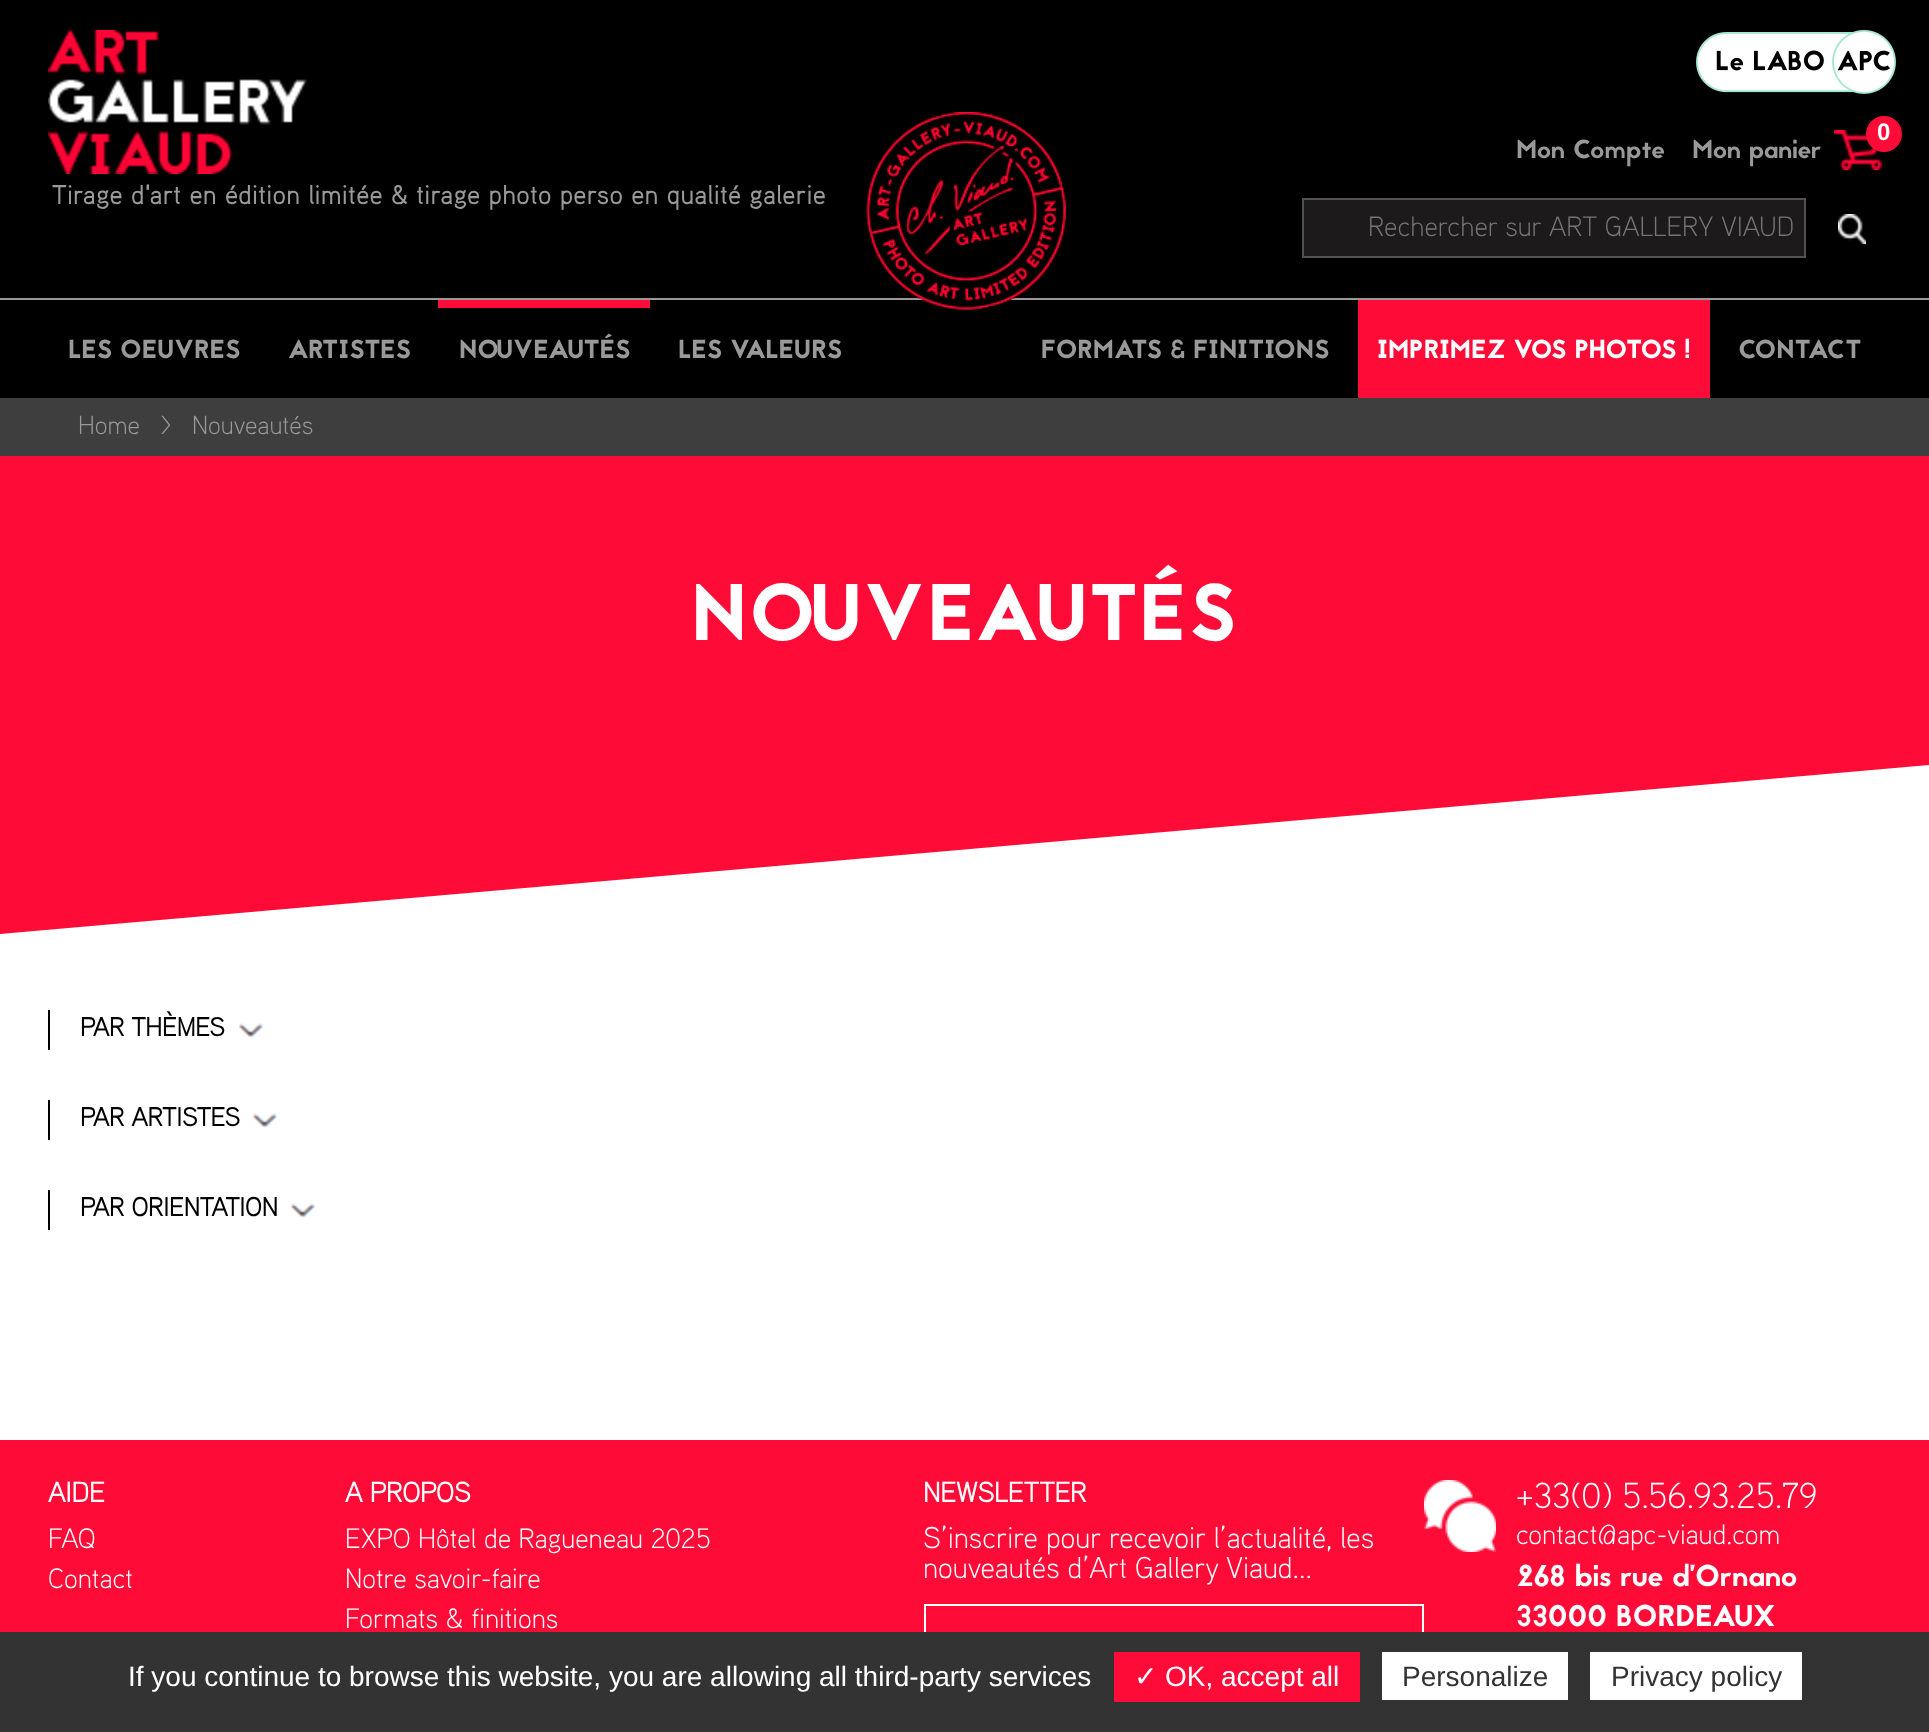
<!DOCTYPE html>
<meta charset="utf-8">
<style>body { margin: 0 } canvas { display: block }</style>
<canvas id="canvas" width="1929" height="1732"></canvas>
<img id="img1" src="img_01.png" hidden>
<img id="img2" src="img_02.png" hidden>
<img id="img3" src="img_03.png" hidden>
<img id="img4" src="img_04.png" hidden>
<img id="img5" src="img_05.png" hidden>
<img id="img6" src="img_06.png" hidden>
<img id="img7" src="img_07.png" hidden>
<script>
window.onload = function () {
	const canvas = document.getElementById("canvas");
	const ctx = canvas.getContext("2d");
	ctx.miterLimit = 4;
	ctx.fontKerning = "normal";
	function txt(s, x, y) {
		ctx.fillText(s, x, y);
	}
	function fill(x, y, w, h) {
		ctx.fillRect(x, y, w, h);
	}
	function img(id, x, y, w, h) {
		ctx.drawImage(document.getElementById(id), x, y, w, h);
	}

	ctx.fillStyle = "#FFFFFF";
	fill(0, 0, 1929, 1732);
	ctx.fillStyle = "#FF0B37";
	ctx.beginPath();
	ctx.moveTo(0, 420);
	ctx.lineTo(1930, 252);
	ctx.lineTo(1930, 765);
	ctx.lineTo(0, 934);
	ctx.closePath();
	ctx.fill();
	ctx.fillStyle = "#000000";
	fill(0, 0, 1929, 398);
	ctx.fillStyle = "#999999";
	fill(0, 298, 1929, 2);
	img("img1", 866, 112, 200, 198);
	img("img2", 48, 30, 259, 144);
	img("img3", 1696, 30, 200, 64);
	img("img4", 1834, 130, 48, 40);
	ctx.fillStyle = "#FF0B37";
	ctx.beginPath();
	ctx.arc(1884, 134, 18, 0, Math.PI * 2);
	ctx.fill();
	ctx.fillStyle = "#1C1A1A";
	ctx.beginPath();
	ctx.rect(1303, 199, 502, 58);
	ctx.fill();
	ctx.strokeStyle = "#515151";
	ctx.lineWidth = 2;
	ctx.stroke();
	img("img5", 1838, 214, 28, 30);
	ctx.fillStyle = "#FF0B37";
	fill(438, 300, 212, 8);
	fill(1358, 300, 352, 98);
	ctx.fillStyle = "#3E3E3E";
	fill(0, 398, 1929, 58);
	ctx.fillStyle = "#000000";
	fill(48, 1010, 2, 40);
	img("img6", 238, 1023, 25, 16);
	fill(48, 1100, 2, 40);
	img("img6", 252, 1113, 25, 16);
	fill(48, 1190, 2, 40);
	img("img6", 290, 1203, 25, 16);
	ctx.fillStyle = "#FF0B37";
	fill(0, 1440, 1929, 192);
	ctx.strokeStyle = "#FFFFFF";
	ctx.strokeRect(925, 1605, 498, 58);
	img("img7", 1424, 1480, 72, 72);
	ctx.fillStyle = "#333333";
	fill(0, 1632, 1929, 100);
	ctx.fillStyle = "#FF0B37";
	fill(1114, 1652, 246, 50);
	ctx.fillStyle = "#FFFFFF";
	fill(1382, 1652, 186, 48);
	fill(1590, 1652, 212, 48);
	ctx.letterSpacing = "1px";
	ctx.font = "bold 26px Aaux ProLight";
	ctx.fillStyle = "#999999";
	txt("Tirage d'art en édition limitée & tirage photo perso en qualité galerie", 52, 204);
	ctx.letterSpacing = "0px";
	ctx.font = "26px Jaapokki";
	txt("Mon Compte", 1516, 158);
	txt("Mon panier", 1692, 158);
	ctx.font = "bold 24px Liberation Sans";
	ctx.fillStyle = "#FFFFFF";
	txt("0", 1877, 140);
	ctx.font = "300 28px Aaux ProLight";
	ctx.fillStyle = "#757575";
	txt("Rechercher sur ART GALLERY VIAUD", 1368, 236);
	ctx.font = "26px Jaapokki";
	ctx.fillStyle = "#999999";
	txt("LES OEUVRES", 68, 358);
	txt("ARTISTES", 288, 358);
	txt("NOUVEAUTÉS", 459, 358);
	txt("LES VALEURS", 678, 358);
	txt("FORMATS & FINITIONS", 1041, 358);
	ctx.fillStyle = "#FFFFFF";
	txt("IMPRIMEZ VOS PHOTOS !", 1377, 358);
	ctx.fillStyle = "#999999";
	txt("CONTACT", 1738, 358);
	ctx.font = "300 26px Aaux ProLight";
	txt("Home", 78, 434);
	txt(">", 160, 434);
	txt("Nouveautés", 192, 434);
	ctx.letterSpacing = "2px";
	ctx.font = "80px Jaapokki";
	ctx.fillStyle = "#FFFFFF";
	txt("NOUVEAUTÉS", 691, 640);
	ctx.letterSpacing = "0px";
	ctx.font = "bold 26px Aaux ProLight";
	ctx.fillStyle = "#000000";
	txt("PAR THÈMES", 80, 1036);
	txt("PAR ARTISTES", 80, 1126);
	txt("PAR ORIENTATION", 80, 1216);
	ctx.font = "bold 28px Aaux ProLight";
	ctx.fillStyle = "#FFFFFF";
	txt("AIDE", 48, 1502);
	ctx.font = "300 28px Aaux ProLight";
	txt("FAQ", 48, 1548);
	txt("Contact", 48, 1588);
	ctx.font = "bold 28px Aaux ProLight";
	txt("A PROPOS", 345, 1502);
	ctx.font = "300 28px Aaux ProLight";
	txt("EXPO Hôtel de Ragueneau 2025", 345, 1548);
	txt("Notre savoir-faire", 345, 1588);
	txt("Formats & finitions", 345, 1628);
	ctx.font = "bold 28px Aaux ProLight";
	txt("NEWSLETTER", 923, 1502);
	ctx.font = "300 30px Aaux ProLight";
	txt("S’inscrire pour recevoir l’actualité, les", 923, 1548);
	txt("nouveautés d’Art Gallery Viaud...", 923, 1578);
	ctx.font = "300 36px Aaux ProLight";
	txt("+33(0) 5.56.93.25.79", 1516, 1508);
	ctx.font = "300 28px Aaux ProLight";
	txt("contact@apc-viaud.com", 1516, 1544);
	ctx.font = "30px Jaapokki";
	txt("268 bis rue d’Ornano", 1516, 1586);
	txt("33000 BORDEAUX", 1516, 1626);
	ctx.font = "28px Liberation Sans";
	txt("If you continue to browse this website, you are allowing all third-party services", 128, 1686);
	ctx.font = "28px DejaVu Sans";
	txt("✓", 1134, 1686);
	ctx.font = "28px Liberation Sans";
	txt("OK, accept all", 1165, 1686);
	ctx.fillStyle = "#333333";
	txt("Personalize", 1402, 1686);
	txt("Privacy policy", 1611, 1686);
};
</script>
